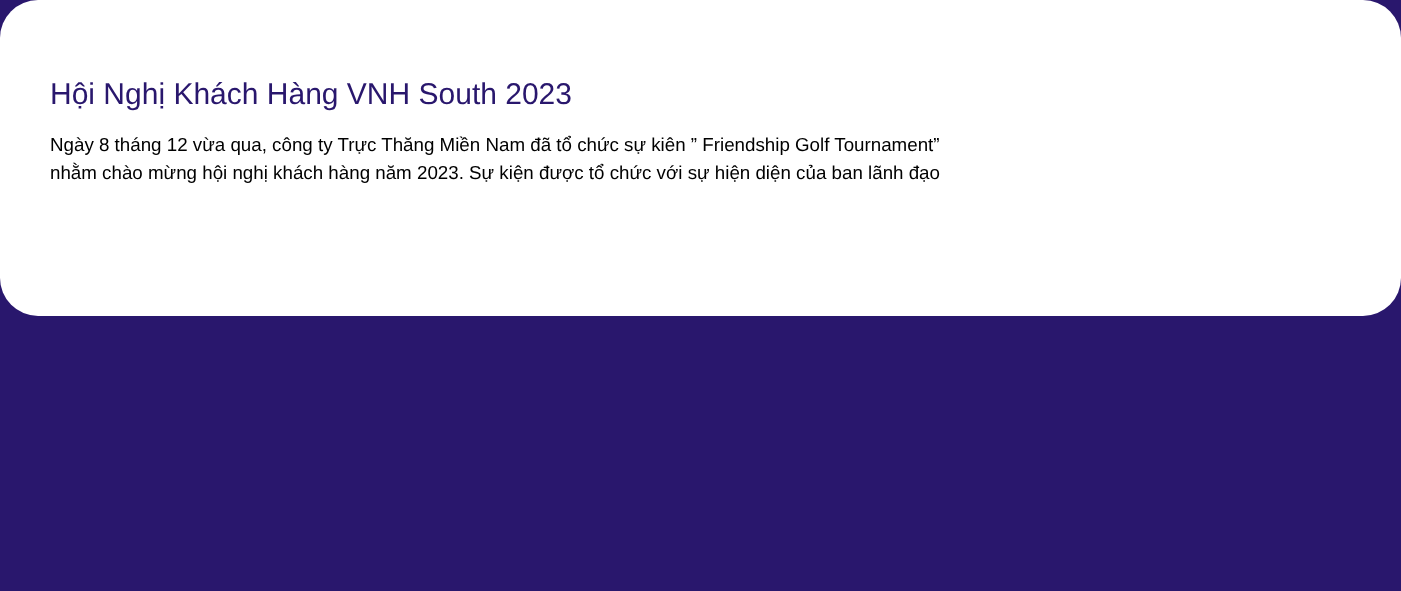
<!DOCTYPE html>
<meta charset="utf-8">
<style>body { margin: 0 } canvas { display: block }</style>
<canvas id="canvas" width="1401" height="591"></canvas>
<script>
window.onload = function () {
	const canvas = document.getElementById("canvas");
	const ctx = canvas.getContext("2d");
	ctx.miterLimit = 4;
	ctx.fontKerning = "normal";
	function txt(s, x, y) {
		ctx.fillText(s, x, y);
	}
	function fill(x, y, w, h) {
		ctx.fillRect(x, y, w, h);
	}
	function round(x, y, w, h, r) {
		ctx.beginPath();
		ctx.roundRect(x, y, w, h, r);
		ctx.fill();
	}

	ctx.fillStyle = "#29176D";
	fill(0, 0, 1401, 591);
	ctx.fillStyle = "#FFFFFF";
	round(0, 0, 1401, 316, 38);
	ctx.font = "30px Liberation Sans";
	ctx.fillStyle = "#29176D";
	txt("Hội Nghị Khách Hàng VNH South 2023", 50, 104);
	ctx.font = "18.75px Liberation Sans";
	ctx.fillStyle = "#000000";
	txt("Ngày 8 tháng 12 vừa qua, công ty Trực Thăng Miền Nam đã tổ chức sự kiên ” Friendship Golf Tournament”", 50, 151);
	txt("nhằm chào mừng hội nghị khách hàng năm 2023. Sự kiện được tổ chức với sự hiện diện của ban lãnh đạo", 50, 179);
};
</script>
